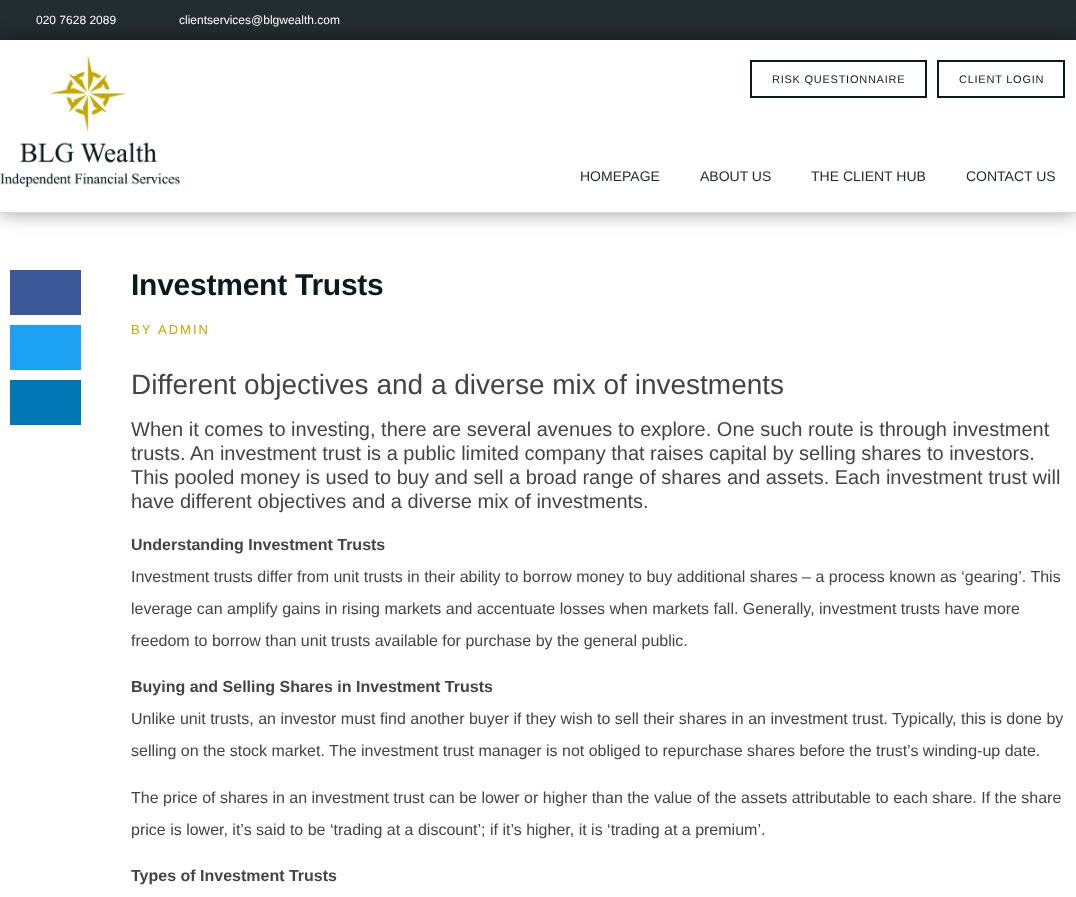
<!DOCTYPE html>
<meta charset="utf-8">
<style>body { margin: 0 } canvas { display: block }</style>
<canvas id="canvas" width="1076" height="897"></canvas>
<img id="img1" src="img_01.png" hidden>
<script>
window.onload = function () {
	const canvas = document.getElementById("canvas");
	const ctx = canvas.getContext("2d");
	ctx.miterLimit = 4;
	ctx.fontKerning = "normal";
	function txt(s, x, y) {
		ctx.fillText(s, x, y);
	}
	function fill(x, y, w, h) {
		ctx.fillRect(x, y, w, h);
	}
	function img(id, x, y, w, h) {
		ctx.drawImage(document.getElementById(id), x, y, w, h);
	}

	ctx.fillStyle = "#FFFFFF";
	fill(0, 0, 1076, 897);
	ctx.fillStyle = "#232C31";
	fill(0, 0, 1076, 40);
	ctx.save();
	ctx.beginPath();
	ctx.moveTo(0, 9);
	ctx.lineTo(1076, 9);
	ctx.lineTo(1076, 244);
	ctx.lineTo(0, 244);
	ctx.closePath();
	ctx.moveTo(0, 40);
	ctx.lineTo(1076, 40);
	ctx.lineTo(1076, 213);
	ctx.lineTo(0, 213);
	ctx.closePath();
	ctx.clip("evenodd");
	ctx.fillStyle = "rgba(0, 0, 0, 0.39)";
	ctx.filter = "blur(10px)";
	ctx.beginPath();
	ctx.rect(0, 40, 1076, 173);
	ctx.fill();
	ctx.filter = "none";
	ctx.restore();
	ctx.fillStyle = "#D8D8D8";
	fill(0, 212, 1076, 1);
	img("img1", 0, 55, 180, 132);
	ctx.strokeStyle = "#0C1A1D";
	ctx.lineWidth = 2;
	ctx.strokeRect(751, 61, 175, 36);
	ctx.strokeRect(938, 61, 126, 36);
	ctx.fillStyle = "#3B5998";
	fill(10, 270, 71, 45);
	ctx.fillStyle = "#1DA1F2";
	fill(10, 325, 71, 45);
	ctx.fillStyle = "#0077B5";
	fill(10, 380, 71, 45);
	ctx.font = "12px Liberation Sans";
	ctx.fillStyle = "#FFFFFF";
	txt("020 7628 2089", 36, 24);
	txt("clientservices@blgwealth.com", 179, 24);
	ctx.letterSpacing = "0.75px";
	ctx.font = "11px Liberation Sans";
	ctx.fillStyle = "#0C1A1D";
	txt("RISK QUESTIONNAIRE", 772, 83);
	txt("CLIENT LOGIN", 959, 83);
	ctx.letterSpacing = "0px";
	ctx.font = "14px Liberation Sans";
	ctx.fillStyle = "#262A2B";
	txt("HOMEPAGE", 580, 181);
	txt("ABOUT US", 700, 181);
	txt("THE CLIENT HUB", 811, 181);
	txt("CONTACT US", 966, 181);
	ctx.letterSpacing = "-0.25px";
	ctx.font = "bold 30px Liberation Sans";
	ctx.fillStyle = "#0C1A1D";
	txt("Investment Trusts", 131, 295);
	ctx.letterSpacing = "2px";
	ctx.font = "13px Liberation Sans";
	ctx.fillStyle = "#C5A900";
	txt("BY", 131, 334);
	txt("ADMIN", 158, 334);
	ctx.letterSpacing = "0px";
	ctx.font = "28px Liberation Sans";
	ctx.fillStyle = "#444444";
	txt("Different objectives and a diverse mix of investments", 131, 394);
	ctx.font = "20px Liberation Sans";
	txt("When it comes to investing, there are several avenues to explore. One such route is through investment", 131, 436);
	txt("trusts. An investment trust is a public limited company that raises capital by selling shares to investors.", 131, 460);
	txt("This pooled money is used to buy and sell a broad range of shares and assets. Each investment trust will", 131, 484);
	txt("have different objectives and a diverse mix of investments.", 131, 508);
	ctx.font = "bold 16px Liberation Sans";
	txt("Understanding Investment Trusts", 131, 550);
	ctx.font = "16px Liberation Sans";
	txt("Investment trusts differ from unit trusts in their ability to borrow money to buy additional shares – a process known as ‘gearing’. This", 131, 582);
	txt("leverage can amplify gains in rising markets and accentuate losses when markets fall. Generally, investment trusts have more", 131, 614);
	txt("freedom to borrow than unit trusts available for purchase by the general public.", 131, 646);
	ctx.font = "bold 16px Liberation Sans";
	txt("Buying and Selling Shares in Investment Trusts", 131, 692);
	ctx.font = "16px Liberation Sans";
	txt("Unlike unit trusts, an investor must find another buyer if they wish to sell their shares in an investment trust. Typically, this is done by", 131, 724);
	txt("selling on the stock market. The investment trust manager is not obliged to repurchase shares before the trust’s winding-up date.", 131, 756);
	txt("The price of shares in an investment trust can be lower or higher than the value of the assets attributable to each share. If the share", 131, 803);
	txt("price is lower, it’s said to be ‘trading at a discount’; if it’s higher, it is ‘trading at a premium’.", 131, 835);
	ctx.font = "bold 16px Liberation Sans";
	txt("Types of Investment Trusts", 131, 881);
};
</script>
